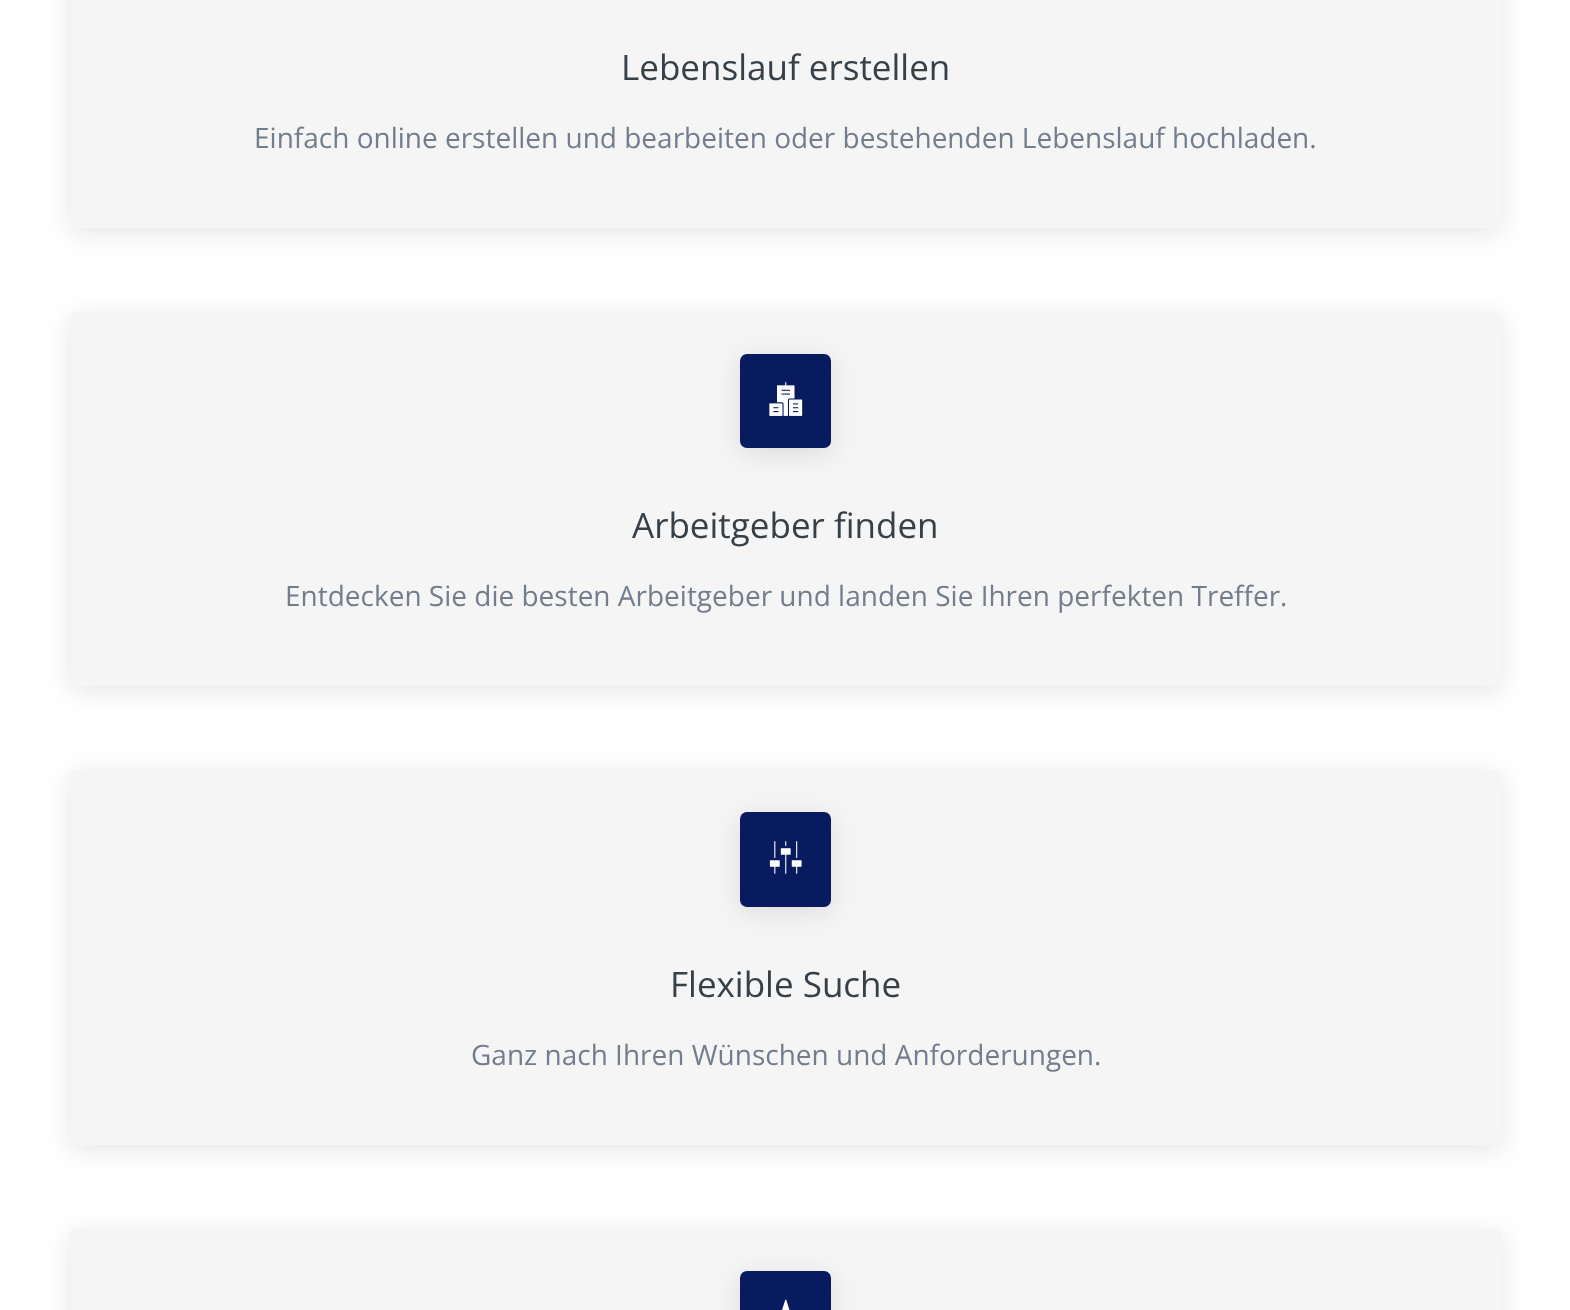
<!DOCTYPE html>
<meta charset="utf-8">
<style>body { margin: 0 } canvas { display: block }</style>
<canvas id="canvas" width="1570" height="1310"></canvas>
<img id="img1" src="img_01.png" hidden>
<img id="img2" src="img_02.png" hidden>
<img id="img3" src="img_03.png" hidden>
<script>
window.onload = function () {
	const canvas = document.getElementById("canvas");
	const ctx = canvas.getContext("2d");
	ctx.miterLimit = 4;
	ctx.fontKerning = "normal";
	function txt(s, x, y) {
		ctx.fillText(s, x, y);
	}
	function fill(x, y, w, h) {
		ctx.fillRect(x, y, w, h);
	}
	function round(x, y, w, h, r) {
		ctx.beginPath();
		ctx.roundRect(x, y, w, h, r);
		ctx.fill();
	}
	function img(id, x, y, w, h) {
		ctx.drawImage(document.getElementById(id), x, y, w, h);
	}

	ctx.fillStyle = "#FFFFFF";
	fill(0, 0, 1570, 1310);
	ctx.fillStyle = "rgba(0, 0, 0, 0.1)";
	ctx.filter = "blur(13px)";
	ctx.beginPath();
	ctx.roundRect(70, -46, 1432, 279, 7);
	ctx.fill();
	ctx.filter = "none";
	ctx.fillStyle = "#F5F5F5";
	round(70, -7, 1432, 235, 7);
	ctx.fillStyle = "rgba(0, 0, 0, 0.1)";
	ctx.filter = "blur(13px)";
	ctx.beginPath();
	ctx.roundRect(70, 317, 1432, 374, 7);
	ctx.fill();
	ctx.filter = "none";
	ctx.fillStyle = "#F5F5F5";
	round(70, 312, 1432, 374, 7);
	ctx.fillStyle = "rgba(0, 0, 0, 0.1)";
	ctx.filter = "blur(13px)";
	ctx.beginPath();
	ctx.roundRect(740, 359, 91, 94, 7);
	ctx.fill();
	ctx.filter = "none";
	ctx.fillStyle = "#081B5F";
	round(740, 354, 91, 94, 7);
	img("img1", 769, 382, 34, 34);
	ctx.fillStyle = "rgba(0, 0, 0, 0.1)";
	ctx.filter = "blur(13px)";
	ctx.beginPath();
	ctx.roundRect(70, 775, 1432, 375, 7);
	ctx.fill();
	ctx.filter = "none";
	ctx.fillStyle = "#F5F5F5";
	round(70, 770, 1432, 375, 7);
	ctx.fillStyle = "rgba(0, 0, 0, 0.1)";
	ctx.filter = "blur(13px)";
	ctx.beginPath();
	ctx.roundRect(740, 817, 91, 95, 7);
	ctx.fill();
	ctx.filter = "none";
	ctx.fillStyle = "#081B5F";
	round(740, 812, 91, 95, 7);
	img("img2", 769, 841, 33, 33);
	ctx.fillStyle = "rgba(0, 0, 0, 0.1)";
	ctx.filter = "blur(13px)";
	ctx.beginPath();
	ctx.roundRect(70, 1234, 1432, 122, 7);
	ctx.fill();
	ctx.filter = "none";
	ctx.fillStyle = "#F5F5F5";
	round(70, 1229, 1432, 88, 7);
	ctx.fillStyle = "rgba(0, 0, 0, 0.1)";
	ctx.filter = "blur(13px)";
	ctx.beginPath();
	ctx.roundRect(740, 1276, 91, 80, 7);
	ctx.fill();
	ctx.filter = "none";
	ctx.fillStyle = "#081B5F";
	round(740, 1271, 91, 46, 7);
	img("img3", 782, 1299, 8, 11);
	ctx.font = "35px Open Sans";
	ctx.fillStyle = "#374047";
	txt("Lebenslauf erstellen", 621, 80);
	ctx.font = "28px Open Sans";
	ctx.fillStyle = "#747D8C";
	txt("Einfach online erstellen und bearbeiten oder bestehenden Lebenslauf hochladen.", 254, 148);
	ctx.font = "35px Open Sans";
	ctx.fillStyle = "#374047";
	txt("Arbeitgeber finden", 632, 538);
	ctx.font = "28px Open Sans";
	ctx.fillStyle = "#747D8C";
	txt("Entdecken Sie die besten Arbeitgeber und landen Sie Ihren perfekten Treffer.", 285, 606);
	ctx.font = "35px Open Sans";
	ctx.fillStyle = "#374047";
	txt("Flexible Suche", 670, 997);
	ctx.font = "28px Open Sans";
	ctx.fillStyle = "#747D8C";
	txt("Ganz nach Ihren Wünschen und Anforderungen.", 471, 1065);
};
</script>
